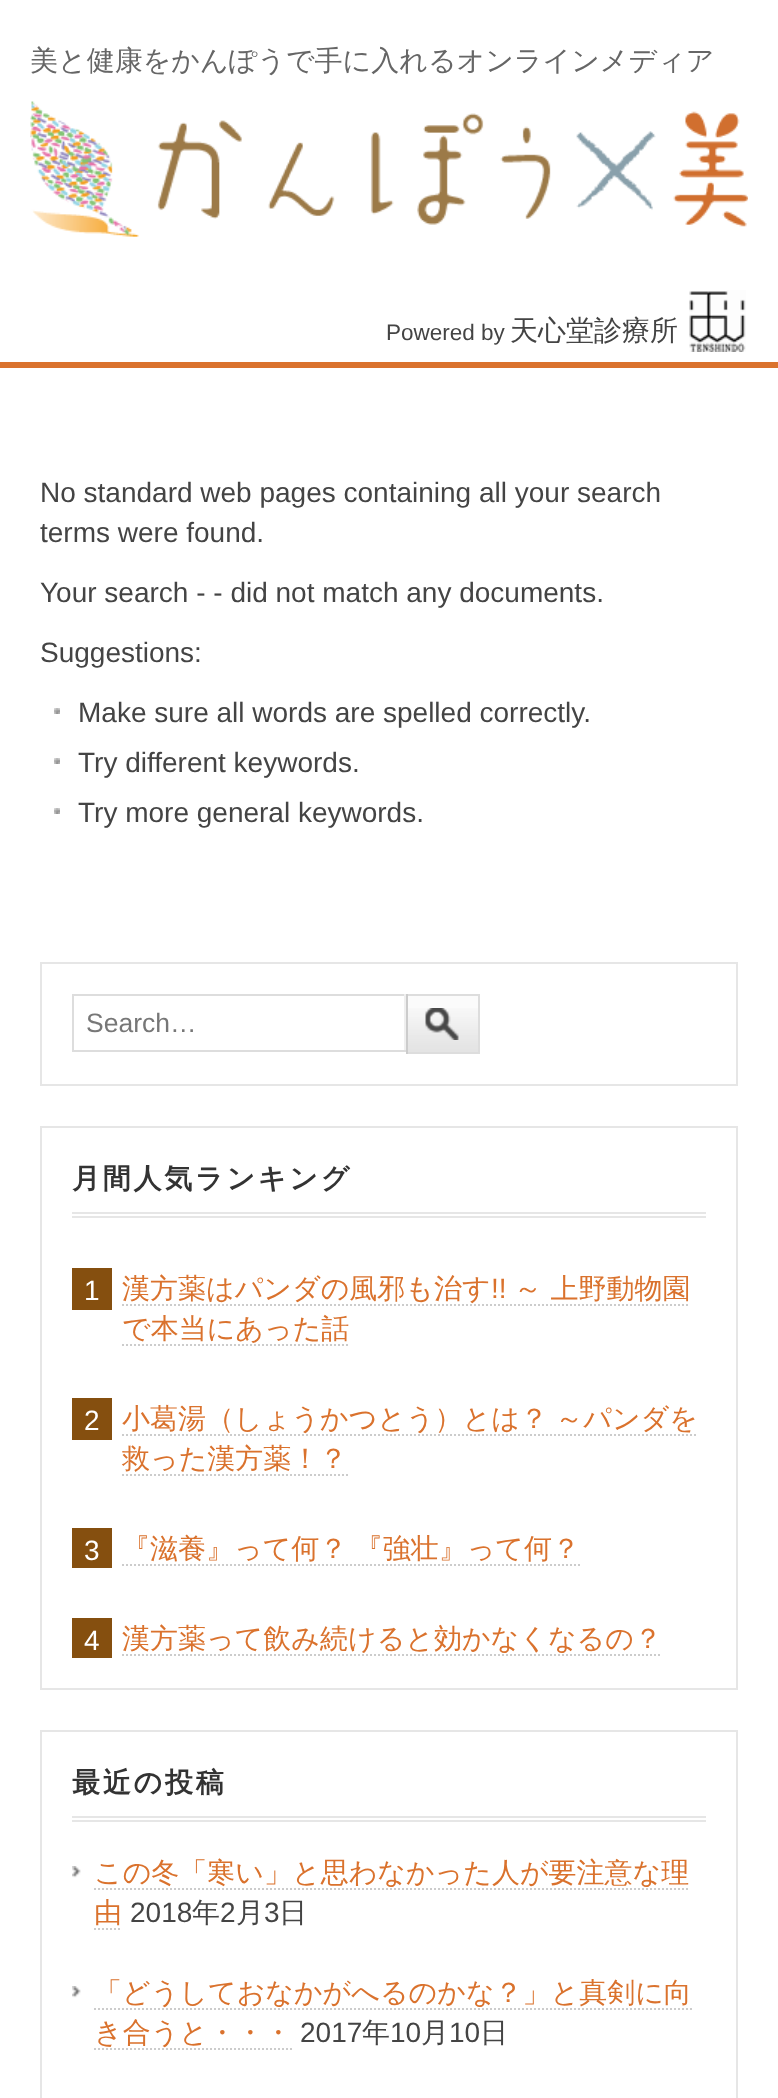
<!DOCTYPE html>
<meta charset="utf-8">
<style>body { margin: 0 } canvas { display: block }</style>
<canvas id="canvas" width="778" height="2098"></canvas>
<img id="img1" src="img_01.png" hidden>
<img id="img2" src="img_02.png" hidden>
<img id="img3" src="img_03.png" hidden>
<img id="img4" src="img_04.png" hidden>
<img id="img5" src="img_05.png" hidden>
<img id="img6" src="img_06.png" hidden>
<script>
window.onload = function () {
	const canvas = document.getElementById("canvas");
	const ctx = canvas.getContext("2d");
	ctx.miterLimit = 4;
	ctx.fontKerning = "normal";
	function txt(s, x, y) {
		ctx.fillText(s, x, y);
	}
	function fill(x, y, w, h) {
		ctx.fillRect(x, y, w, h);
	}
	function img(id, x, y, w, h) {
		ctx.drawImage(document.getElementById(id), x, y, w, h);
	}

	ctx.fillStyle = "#FFFFFF";
	fill(0, 0, 778, 2098);
	ctx.fillStyle = "#DA722D";
	fill(0, 362, 778, 6);
	img("img1", 30, 101, 718, 136);
	img("img2", 689, 290, 57, 62);
	img("img3", 54, 708, 6, 6);
	img("img3", 54, 758, 6, 6);
	img("img3", 54, 808, 6, 6);
	ctx.strokeStyle = "#E6E6E6";
	ctx.lineWidth = 2;
	ctx.strokeRect(41, 963, 696, 122);
	ctx.fillStyle = "#DDDDDD";
	fill(72, 994, 408, 2);
	ctx.fillStyle = "#EFEFEF";
	fill(404, 994, 2, 58);
	ctx.fillStyle = "#DDDDDD";
	fill(72, 1050, 334, 2);
	fill(72, 994, 2, 58);
	ctx.fillStyle = "#FBFBFB";
	fill(408, 996, 70, 56);
	img("img4", 408, 1008, 70, 44);
	ctx.fillStyle = "#DDDDDD";
	fill(478, 994, 2, 60);
	fill(406, 1052, 74, 2);
	ctx.fillStyle = "#CCCCCC";
	fill(406, 994, 2, 60);
	img("img5", 425, 1008, 34, 32);
	ctx.strokeRect(41, 1127, 696, 562);
	ctx.fillStyle = "#E6E6E6";
	fill(72, 1212, 634, 2);
	fill(72, 1216, 634, 2);
	ctx.fillStyle = "#854F0F";
	fill(72, 1268, 40, 42);
	ctx.beginPath();
	ctx.moveTo(122, 1305);
	ctx.lineTo(690, 1305);
	ctx.strokeStyle = "#CCCCCC";
	ctx.setLineDash([2, 2]);
	ctx.stroke();
	ctx.beginPath();
	ctx.moveTo(122, 1345);
	ctx.lineTo(350, 1345);
	ctx.stroke();
	fill(72, 1398, 40, 42);
	ctx.beginPath();
	ctx.moveTo(122, 1435);
	ctx.lineTo(698, 1435);
	ctx.stroke();
	ctx.beginPath();
	ctx.moveTo(122, 1475);
	ctx.lineTo(348, 1475);
	ctx.stroke();
	fill(72, 1528, 40, 40);
	ctx.beginPath();
	ctx.moveTo(122, 1565);
	ctx.lineTo(580, 1565);
	ctx.stroke();
	fill(72, 1618, 40, 40);
	ctx.beginPath();
	ctx.moveTo(122, 1655);
	ctx.lineTo(662, 1655);
	ctx.stroke();
	ctx.strokeStyle = "#E6E6E6";
	ctx.setLineDash([]);
	ctx.strokeRect(41, 1731, 696, 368);
	ctx.fillStyle = "#E6E6E6";
	fill(72, 1816, 634, 2);
	fill(72, 1820, 634, 2);
	img("img6", 72, 1866, 9, 12);
	ctx.beginPath();
	ctx.moveTo(94, 1889);
	ctx.lineTo(690, 1889);
	ctx.strokeStyle = "#CCCCCC";
	ctx.setLineDash([2, 2]);
	ctx.stroke();
	ctx.beginPath();
	ctx.moveTo(94, 1929);
	ctx.lineTo(122, 1929);
	ctx.stroke();
	img("img6", 72, 1986, 9, 12);
	ctx.beginPath();
	ctx.moveTo(94, 2009);
	ctx.lineTo(692, 2009);
	ctx.stroke();
	ctx.beginPath();
	ctx.moveTo(94, 2049);
	ctx.lineTo(292, 2049);
	ctx.stroke();
	ctx.font = "500 28px WenQuanYi Zen Hei";
	ctx.fillStyle = "#666666";
	txt("美と健康をかんぽうで手に入れるオンラインメディア", 30, 70);
	ctx.font = "22.5px Liberation Sans";
	ctx.fillStyle = "#444444";
	txt("Powered by", 386, 340);
	ctx.font = "500 28px WenQuanYi Zen Hei";
	txt("天心堂診療所", 510, 340);
	ctx.font = "28px Liberation Sans";
	txt("No standard web pages containing all your search", 40, 502);
	txt("terms were found.", 40, 542);
	txt("Your search - - did not match any documents.", 40, 602);
	txt("Suggestions:", 40, 662);
	txt("Make sure all words are spelled correctly.", 78, 722);
	txt("Try different keywords.", 78, 772);
	txt("Try more general keywords.", 78, 822);
	ctx.font = "26.5px Liberation Sans";
	ctx.fillStyle = "#777777";
	txt("Search…", 86, 1032);
	ctx.letterSpacing = "2.75px";
	ctx.font = "bold 28px WenQuanYi Zen Hei";
	ctx.fillStyle = "#333333";
	txt("月間人気ランキング", 72, 1188);
	ctx.letterSpacing = "0px";
	ctx.font = "28px Liberation Sans";
	ctx.fillStyle = "#FFFFFF";
	txt("1", 84, 1300);
	ctx.font = "500 28px WenQuanYi Zen Hei";
	ctx.fillStyle = "#DA722D";
	txt("漢方薬はパンダの風邪も治す", 122, 1298);
	ctx.font = "28px Liberation Sans";
	txt("!!", 491, 1298);
	ctx.font = "500 28px WenQuanYi Zen Hei";
	txt("～ 上野動物園", 514, 1298);
	txt("で本当にあった話", 122, 1338);
	ctx.font = "28px Liberation Sans";
	ctx.fillStyle = "#FFFFFF";
	txt("2", 84, 1430);
	ctx.wordSpacing = "-1px";
	ctx.font = "500 28px WenQuanYi Zen Hei";
	ctx.fillStyle = "#DA722D";
	txt("小葛湯（しょうかつとう）とは？ ～パンダを", 122, 1428);
	ctx.wordSpacing = "0px";
	txt("救った漢方薬！？", 122, 1468);
	ctx.font = "28px Liberation Sans";
	ctx.fillStyle = "#FFFFFF";
	txt("3", 84, 1560);
	ctx.wordSpacing = "-1px";
	ctx.font = "500 28px WenQuanYi Zen Hei";
	ctx.fillStyle = "#DA722D";
	txt("『滋養』って何？ 『強壮』って何？", 122, 1558);
	ctx.wordSpacing = "0px";
	ctx.font = "28px Liberation Sans";
	ctx.fillStyle = "#FFFFFF";
	txt("4", 84, 1650);
	ctx.font = "500 28px WenQuanYi Zen Hei";
	ctx.fillStyle = "#DA722D";
	txt("漢方薬って飲み続けると効かなくなるの？", 122, 1648);
	ctx.letterSpacing = "2.75px";
	ctx.font = "bold 28px WenQuanYi Zen Hei";
	ctx.fillStyle = "#333333";
	txt("最近の投稿", 72, 1792);
	ctx.letterSpacing = "0px";
	ctx.font = "500 28px WenQuanYi Zen Hei";
	ctx.fillStyle = "#DA722D";
	txt("この冬「寒い」と思わなかった人が要注意な理", 94, 1882);
	txt("由", 94, 1922);
	ctx.font = "28px Liberation Sans";
	ctx.fillStyle = "#444444";
	txt("2018", 130, 1922);
	ctx.font = "500 28px WenQuanYi Zen Hei";
	txt("年", 192, 1922);
	ctx.font = "28px Liberation Sans";
	txt("2", 220, 1922);
	ctx.font = "500 28px WenQuanYi Zen Hei";
	txt("月", 236, 1922);
	ctx.font = "28px Liberation Sans";
	txt("3", 264, 1922);
	ctx.font = "500 28px WenQuanYi Zen Hei";
	txt("日", 279, 1922);
	ctx.fillStyle = "#DA722D";
	txt("「どうしておなかがへるのかな？」と真剣に向", 94, 2002);
	txt("き合うと・・・", 94, 2042);
	ctx.font = "28px Liberation Sans";
	ctx.fillStyle = "#444444";
	txt("2017", 300, 2042);
	ctx.font = "500 28px WenQuanYi Zen Hei";
	txt("年", 362, 2042);
	ctx.font = "28px Liberation Sans";
	txt("10", 390, 2042);
	ctx.font = "500 28px WenQuanYi Zen Hei";
	txt("月", 421, 2042);
	ctx.font = "28px Liberation Sans";
	txt("10", 449, 2042);
	ctx.font = "500 28px WenQuanYi Zen Hei";
	txt("日", 480, 2042);
};
</script>
